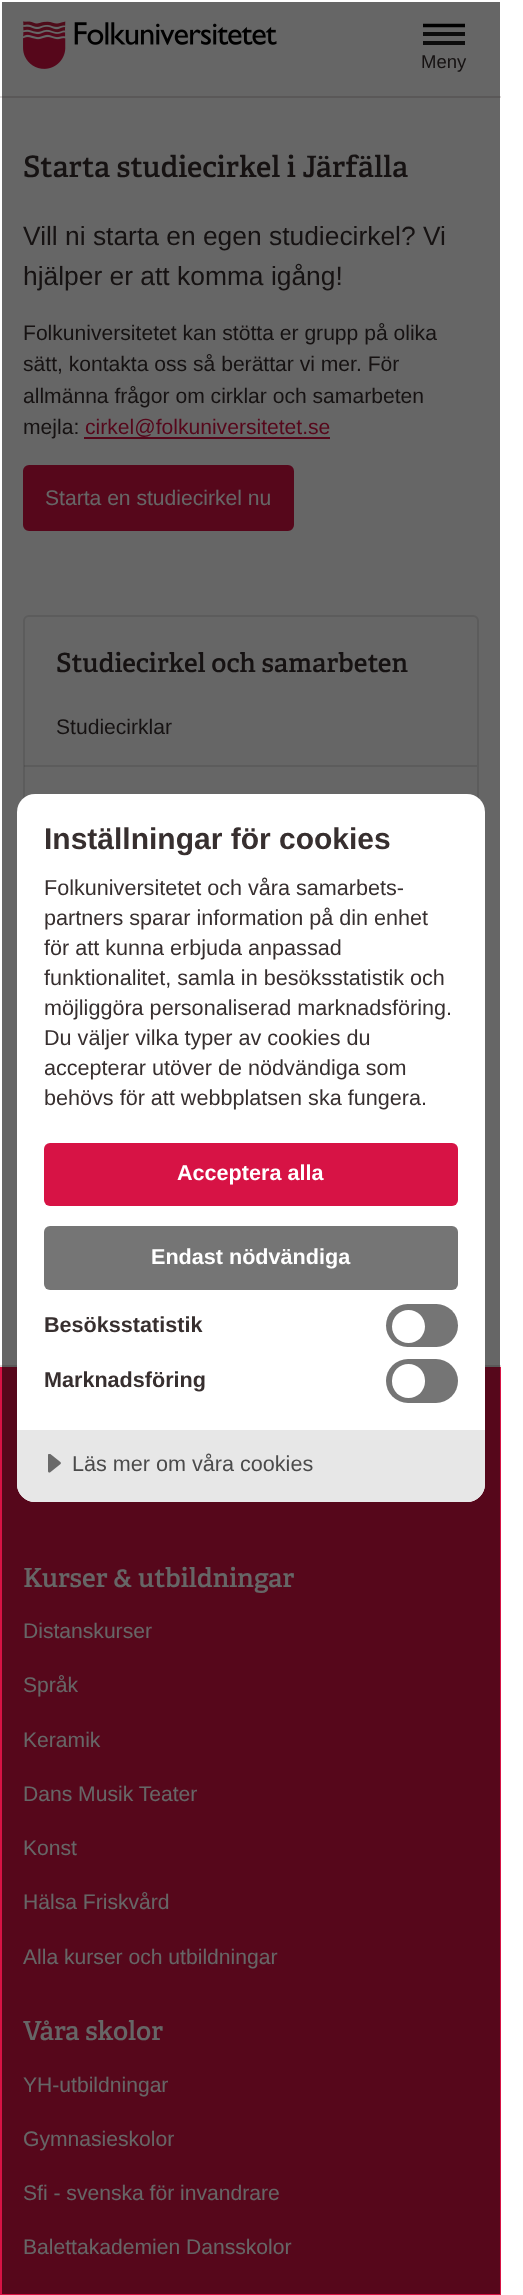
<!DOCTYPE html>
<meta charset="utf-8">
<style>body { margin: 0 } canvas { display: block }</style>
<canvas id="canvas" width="523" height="2295"></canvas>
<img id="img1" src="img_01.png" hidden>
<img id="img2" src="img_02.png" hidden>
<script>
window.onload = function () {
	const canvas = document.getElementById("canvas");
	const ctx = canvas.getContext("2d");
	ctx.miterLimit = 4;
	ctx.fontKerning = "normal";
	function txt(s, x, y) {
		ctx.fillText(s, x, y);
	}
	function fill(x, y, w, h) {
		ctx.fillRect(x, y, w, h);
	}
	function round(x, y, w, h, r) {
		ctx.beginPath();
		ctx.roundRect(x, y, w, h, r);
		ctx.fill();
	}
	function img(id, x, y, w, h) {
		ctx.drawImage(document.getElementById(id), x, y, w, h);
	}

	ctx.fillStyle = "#FFFFFF";
	fill(0, 0, 523, 2295);
	ctx.fillStyle = "#E0DCDC";
	fill(0, 96, 501, 2);
	img("img1", 23, 21, 254, 48);
	ctx.beginPath();
	ctx.moveTo(423, 25.5);
	ctx.lineTo(465, 25.5);
	ctx.strokeStyle = "#000000";
	ctx.lineWidth = 3.5;
	ctx.stroke();
	ctx.fillStyle = "#202020";
	fill(423, 32, 42, 4);
	fill(423, 41, 42, 4);
	ctx.fillStyle = "#D71345";
	fill(84, 437, 246, 2);
	ctx.beginPath();
	ctx.roundRect(24, 466, 269, 64, 5);
	ctx.fill();
	ctx.strokeStyle = "#D71345";
	ctx.lineWidth = 2;
	ctx.stroke();
	ctx.beginPath();
	ctx.roundRect(24, 616, 454, 706, 5);
	ctx.strokeStyle = "#E6E5E5";
	ctx.stroke();
	ctx.fillStyle = "rgba(55, 47, 47, 0.12)";
	fill(24, 765, 453, 2);
	ctx.fillStyle = "#D71345";
	fill(0, 1367, 501, 928);
	ctx.fillStyle = "#E0DCDC";
	fill(0, 1365, 501, 2);
	ctx.font = "18.5px Liberation Sans";
	ctx.fillStyle = "#372F2F";
	txt("Meny", 421, 68);
	ctx.font = "600 29.5px 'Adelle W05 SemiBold'";
	txt("Starta studiecirkel i Järfälla", 23, 177);
	ctx.font = "26.4px Liberation Sans";
	txt("Vill ni starta en egen studiecirkel? Vi", 23, 245);
	txt("hjälper er att komma igång!", 23, 285);
	ctx.font = "21.1px Liberation Sans";
	txt("Folkuniversitetet kan stötta er grupp på olika", 23, 340);
	txt("sätt, kontakta oss så berättar vi mer. För", 23, 371);
	txt("allmänna frågor om cirklar och samarbeten", 23, 403);
	txt("mejla:", 23, 434);
	ctx.fillStyle = "#D71345";
	txt("cirkel@folkuniversitetet.se", 85, 434);
	ctx.fillStyle = "#FFFFFF";
	txt("Starta en studiecirkel nu", 45, 505);
	ctx.font = "600 26.4px 'Adelle W05 SemiBold'";
	ctx.fillStyle = "#372F2F";
	txt("Studiecirkel och samarbeten", 56, 672);
	ctx.font = "21.1px Liberation Sans";
	txt("Studiecirklar", 56, 734);
	ctx.font = "600 26.4px 'Adelle W05 SemiBold'";
	ctx.fillStyle = "#FFFFFF";
	txt("Kurser & utbildningar", 23, 1587);
	ctx.font = "21.1px Liberation Sans";
	txt("Distanskurser", 23, 1638);
	txt("Språk", 23, 1692);
	txt("Keramik", 23, 1747);
	txt("Dans Musik Teater", 23, 1801);
	txt("Konst", 23, 1855);
	txt("Hälsa Friskvård", 23, 1909);
	txt("Alla kurser och utbildningar", 23, 1964);
	ctx.font = "600 26.4px 'Adelle W05 SemiBold'";
	txt("Våra skolor", 23, 2040);
	ctx.font = "21.1px Liberation Sans";
	txt("YH-utbildningar", 23, 2092);
	txt("Gymnasieskolor", 23, 2146);
	txt("Sfi - svenska för invandrare", 23, 2200);
	txt("Balettakademien Dansskolor", 23, 2254);
	ctx.fillStyle = "rgba(0, 0, 0, 0.6)";
	fill(2, 2, 498, 2292);
	ctx.fillStyle = "#FFFFFF";
	round(17, 794, 468, 708, 18);
	ctx.font = "bold 30px Liberation Sans";
	ctx.fillStyle = "#372F2F";
	txt("Inställningar för cookies", 44, 849);
	ctx.font = "21.6px Liberation Sans";
	txt("Folkuniversitetet och våra samarbets-", 44, 895);
	txt("partners sparar information på din enhet", 44, 925);
	txt("för att kunna erbjuda anpassad", 44, 955);
	txt("funktionalitet, samla in besöksstatistik och", 44, 985);
	txt("möjliggöra personaliserad marknadsföring.", 44, 1015);
	txt("Du väljer vilka typer av cookies du", 44, 1045);
	txt("accepterar utöver de nödvändiga som", 44, 1075);
	txt("behövs för att webbplatsen ska fungera.", 44, 1105);
	ctx.fillStyle = "#D71345";
	round(44, 1143, 414, 63, 6);
	ctx.font = "bold 21.6px Liberation Sans";
	ctx.fillStyle = "#FFFFFF";
	txt("Acceptera alla", 177, 1180);
	ctx.fillStyle = "#757575";
	round(44, 1226, 414, 64, 6);
	ctx.fillStyle = "#FFFFFF";
	txt("Endast nödvändiga", 151, 1264);
	ctx.fillStyle = "#372F2F";
	txt("Besöksstatistik", 44, 1332);
	ctx.fillStyle = "#757575";
	round(386, 1304, 72, 43, 21.5);
	ctx.fillStyle = "#FFFFFF";
	ctx.beginPath();
	ctx.arc(408.5, 1326.5, 16.5, 0, Math.PI * 2);
	ctx.fill();
	ctx.fillStyle = "#372F2F";
	txt("Marknadsföring", 44, 1387);
	ctx.fillStyle = "#757575";
	round(386, 1359, 72, 44, 22);
	ctx.fillStyle = "#FFFFFF";
	round(392, 1364, 33, 34, 16.5);
	ctx.fillStyle = "#E7E7E7";
	ctx.beginPath();
	ctx.roundRect(17, 1430, 468, 72, [0, 0, 18, 18]);
	ctx.fill();
	img("img2", 48, 1454, 13, 19);
	ctx.font = "21.6px Liberation Sans";
	ctx.fillStyle = "#4B4B4B";
	txt("Läs mer om våra cookies", 72, 1471);
};
</script>
